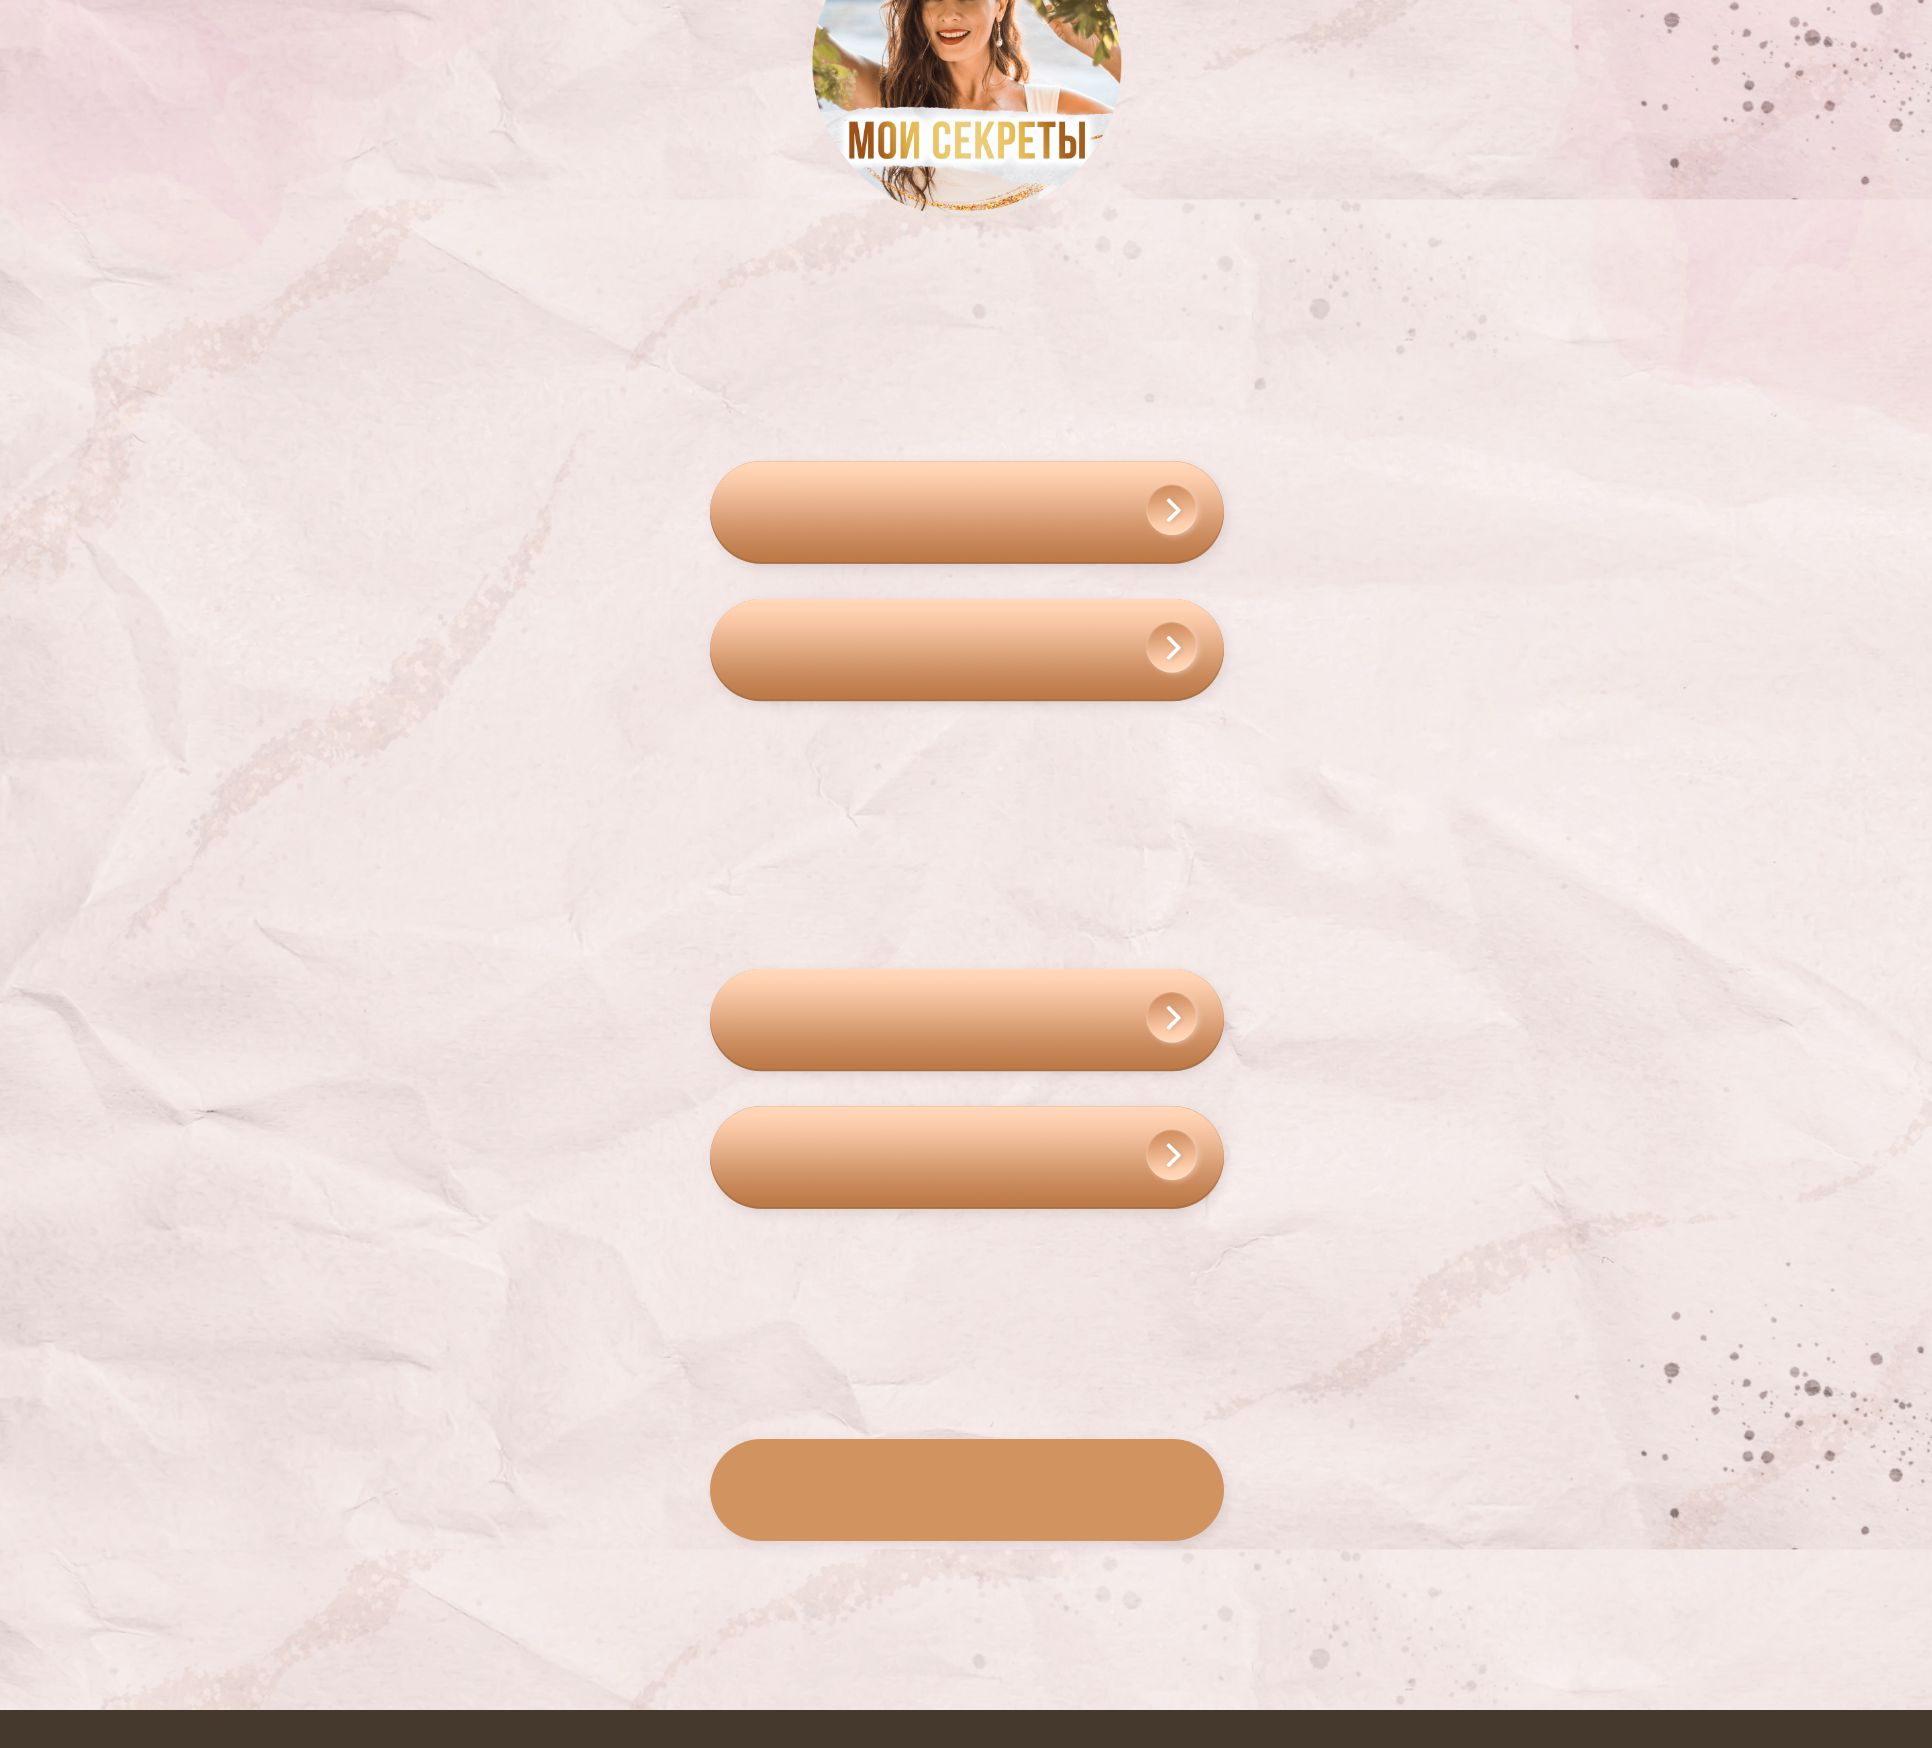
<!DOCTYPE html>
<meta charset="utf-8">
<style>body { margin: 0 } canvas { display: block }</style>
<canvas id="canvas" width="1932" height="1748"></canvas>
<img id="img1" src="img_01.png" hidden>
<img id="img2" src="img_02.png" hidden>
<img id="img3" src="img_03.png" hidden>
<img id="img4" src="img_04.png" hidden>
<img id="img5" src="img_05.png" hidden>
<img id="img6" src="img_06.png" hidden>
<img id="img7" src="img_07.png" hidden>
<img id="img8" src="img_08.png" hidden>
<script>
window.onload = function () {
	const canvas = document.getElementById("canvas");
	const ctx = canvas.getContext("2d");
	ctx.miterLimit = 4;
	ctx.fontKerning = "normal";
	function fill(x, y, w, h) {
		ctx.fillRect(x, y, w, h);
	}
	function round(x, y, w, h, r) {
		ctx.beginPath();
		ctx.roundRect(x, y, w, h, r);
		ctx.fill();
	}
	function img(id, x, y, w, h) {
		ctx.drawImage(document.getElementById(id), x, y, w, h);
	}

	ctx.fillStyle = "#FFFFFF";
	fill(0, 0, 1932, 1748);
	img("img1", 0, 0, 1932, 1710);
	img("img2", 0, 0, 509, 272);
	img("img3", 812, 0, 310, 218);
	img("img4", 1507, 0, 425, 436);
	ctx.fillStyle = "rgba(38, 23, 23, 0.1)";
	ctx.filter = "blur(6px)";
	ctx.beginPath();
	ctx.roundRect(713, 465, 513, 103, 51.5);
	ctx.fill();
	ctx.filter = "none";
	ctx.fillStyle = "#D19360";
	round(710, 461, 514, 103, 51.5);
	img("img5", 710, 461, 514, 103);
	ctx.fillStyle = "rgba(38, 23, 23, 0.1)";
	ctx.filter = "blur(6px)";
	ctx.beginPath();
	ctx.roundRect(713, 603, 513, 102, 51);
	ctx.fill();
	ctx.filter = "none";
	ctx.fillStyle = "#D19360";
	round(710, 599, 514, 102, 51);
	img("img6", 710, 598, 514, 104);
	ctx.fillStyle = "rgba(38, 23, 23, 0.1)";
	ctx.filter = "blur(6px)";
	ctx.beginPath();
	ctx.roundRect(713, 973, 513, 102, 51);
	ctx.fill();
	ctx.filter = "none";
	ctx.fillStyle = "#D19360";
	round(710, 969, 514, 102, 51);
	img("img7", 710, 968, 514, 104);
	ctx.fillStyle = "rgba(38, 23, 23, 0.1)";
	ctx.filter = "blur(6px)";
	ctx.beginPath();
	ctx.roundRect(713, 1110, 513, 103, 51.5);
	ctx.fill();
	ctx.filter = "none";
	ctx.fillStyle = "#D19360";
	round(710, 1106, 514, 103, 51.5);
	img("img8", 710, 1106, 514, 103);
	ctx.fillStyle = "rgba(38, 23, 23, 0.1)";
	ctx.filter = "blur(6px)";
	ctx.beginPath();
	ctx.roundRect(713, 1443, 513, 102, 51);
	ctx.fill();
	ctx.filter = "none";
	ctx.fillStyle = "#D19360";
	round(710, 1439, 514, 102, 51);
	ctx.fillStyle = "#45382D";
	fill(0, 1710, 1932, 38);
};
</script>
